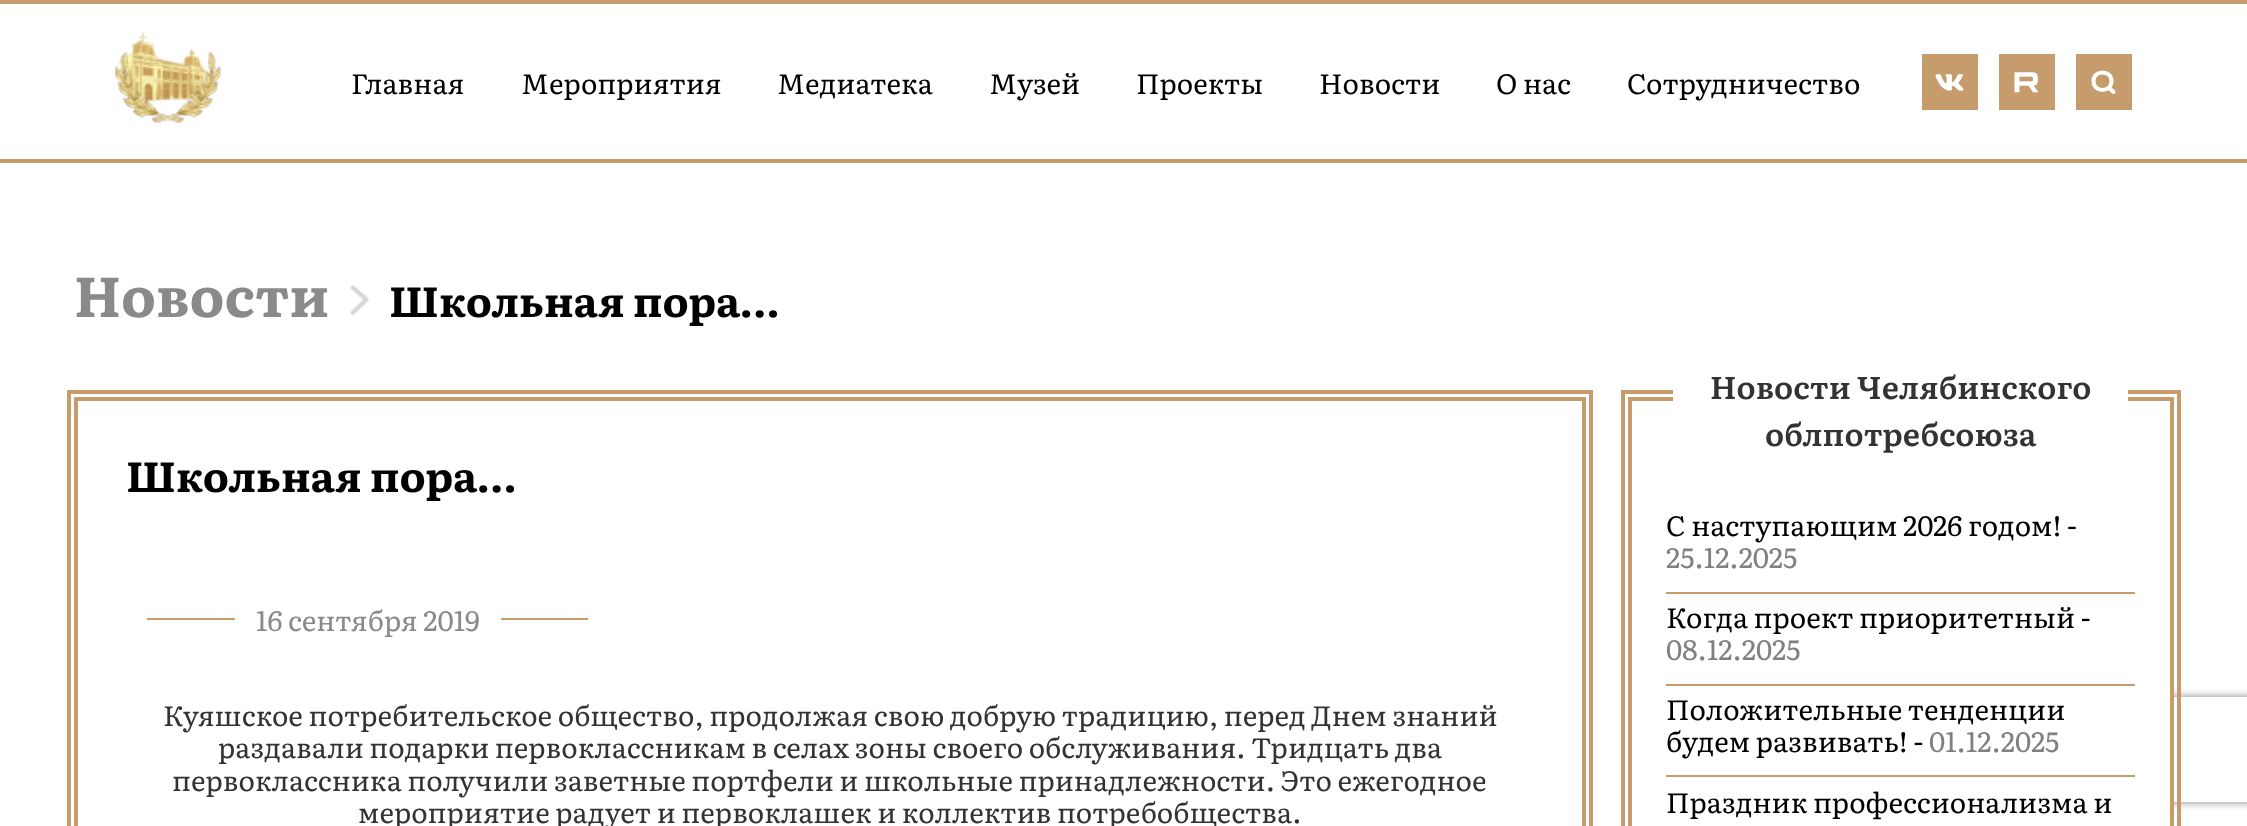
<!DOCTYPE html>
<meta charset="utf-8">
<style>body { margin: 0 } canvas { display: block }</style>
<canvas id="canvas" width="2247" height="826"></canvas>
<img id="img1" src="img_01.png" hidden>
<img id="img2" src="img_02.png" hidden>
<img id="img3" src="img_03.png" hidden>
<img id="img4" src="img_04.png" hidden>
<script>
window.onload = function () {
	const canvas = document.getElementById("canvas");
	const ctx = canvas.getContext("2d");
	ctx.miterLimit = 4;
	ctx.fontKerning = "normal";
	function txt(s, x, y) {
		ctx.fillText(s, x, y);
	}
	function fill(x, y, w, h) {
		ctx.fillRect(x, y, w, h);
	}
	function img(id, x, y, w, h) {
		ctx.drawImage(document.getElementById(id), x, y, w, h);
	}

	ctx.fillStyle = "#FFFFFF";
	fill(0, 0, 2247, 826);
	ctx.fillStyle = "#C69C6D";
	fill(0, 0, 2247, 4);
	fill(0, 159, 2247, 4);
	img("img1", 115, 31, 106, 92);
	img("img2", 1922, 54, 56, 56);
	img("img3", 1999, 54, 56, 56);
	fill(2076, 54, 56, 56);
	ctx.beginPath();
	ctx.moveTo(2113.5, 92);
	ctx.lineTo(2108.5, 87.5);
	ctx.moveTo(2111.5, 81);
	ctx.bezierCurveTo(2111.5, 93, 2093.5, 93, 2093.5, 81);
	ctx.bezierCurveTo(2093.5, 69.5, 2111.5, 69.5, 2111.5, 81);
	ctx.closePath();
	ctx.strokeStyle = "#FFFFFF";
	ctx.lineWidth = 4;
	ctx.lineCap = "round";
	ctx.lineJoin = "round";
	ctx.stroke();
	img("img4", 350, 284, 20, 32);
	ctx.strokeStyle = "#C69C6D";
	ctx.lineJoin = "miter";
	ctx.strokeRect(76, 399, 1508, 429);
	fill(147, 618, 88, 2);
	fill(501, 618, 87, 2);
	ctx.strokeRect(69, 392, 1522, 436);
	ctx.save();
	ctx.beginPath();
	ctx.moveTo(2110, 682);
	ctx.lineTo(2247, 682);
	ctx.lineTo(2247, 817);
	ctx.lineTo(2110, 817);
	ctx.closePath();
	ctx.moveTo(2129, 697);
	ctx.lineTo(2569, 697);
	ctx.bezierCurveTo(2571, 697, 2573, 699, 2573, 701);
	ctx.lineTo(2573, 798);
	ctx.bezierCurveTo(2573, 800, 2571, 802, 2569, 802);
	ctx.lineTo(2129, 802);
	ctx.bezierCurveTo(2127, 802, 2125, 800, 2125, 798);
	ctx.lineTo(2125, 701);
	ctx.bezierCurveTo(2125, 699, 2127, 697, 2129, 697);
	ctx.closePath();
	ctx.clip("evenodd");
	ctx.fillStyle = "#808080";
	ctx.filter = "blur(4.5px)";
	ctx.beginPath();
	ctx.roundRect(2125, 697, 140, 105, 4);
	ctx.fill();
	ctx.filter = "none";
	ctx.restore();
	ctx.fillStyle = "#FFFFFF";
	fill(2116, 688, 54, 123);
	ctx.strokeRect(1630, 399, 542, 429);
	ctx.fillStyle = "#C69C6D";
	fill(1666, 592, 469, 2);
	fill(1666, 684, 469, 2);
	fill(1666, 775, 469, 2);
	ctx.strokeRect(1623, 392, 556, 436);
	ctx.fillStyle = "#FFFFFF";
	fill(1673, 390, 455, 11);
	ctx.font = "28px Literata";
	ctx.fillStyle = "#000000";
	txt("Главная", 351, 94);
	txt("Мероприятия", 521, 94);
	txt("Медиатека", 777, 94);
	txt("Музей", 989, 94);
	txt("Проекты", 1136, 94);
	txt("Новости", 1319, 94);
	txt("О нас", 1496, 94);
	txt("Сотрудничество", 1627, 94);
	ctx.font = "bold 56px Literata";
	ctx.fillStyle = "#8A8A8A";
	txt("Новости", 74, 317);
	ctx.font = "bold 42px Literata";
	ctx.fillStyle = "#000000";
	txt("Школьная пора…", 389, 317);
	txt("Школьная пора…", 126, 492);
	ctx.font = "28px Literata";
	ctx.fillStyle = "#8A8A8A";
	txt("16 сентября 2019", 256, 631);
	ctx.fillStyle = "#333333";
	txt("Куяшское потребительское общество, продолжая свою добрую традицию, перед Днем знаний", 163, 726);
	ctx.wordSpacing = "-0.1px";
	txt("раздавали подарки первоклассникам в селах зоны своего обслуживания. Тридцать два", 218, 758);
	txt("первоклассника получили заветные портфели и школьные принадлежности. Это ежегодное", 172, 791);
	ctx.wordSpacing = "0px";
	txt("мероприятие радует и первоклашек и коллектив потребобщества.", 358, 823);
	ctx.font = "600 31.5px Literata";
	txt("Новости Челябинского", 1710, 399);
	txt("облпотребсоюза", 1765, 446);
	ctx.font = "28px Literata";
	ctx.fillStyle = "#000000";
	txt("С наступающим 2026 годом! -", 1666, 536);
	ctx.fillStyle = "#808080";
	txt("25.12.2025", 1666, 568);
	ctx.fillStyle = "#000000";
	txt("Когда проект приоритетный -", 1666, 628);
	ctx.fillStyle = "#808080";
	txt("08.12.2025", 1666, 660);
	ctx.fillStyle = "#000000";
	txt("Положительные тенденции", 1666, 720);
	txt("будем развивать! -", 1666, 752);
	ctx.fillStyle = "#808080";
	txt("01.12.2025", 1929, 752);
	ctx.fillStyle = "#000000";
	txt("Праздник профессионализма и", 1666, 813);
};
</script>
